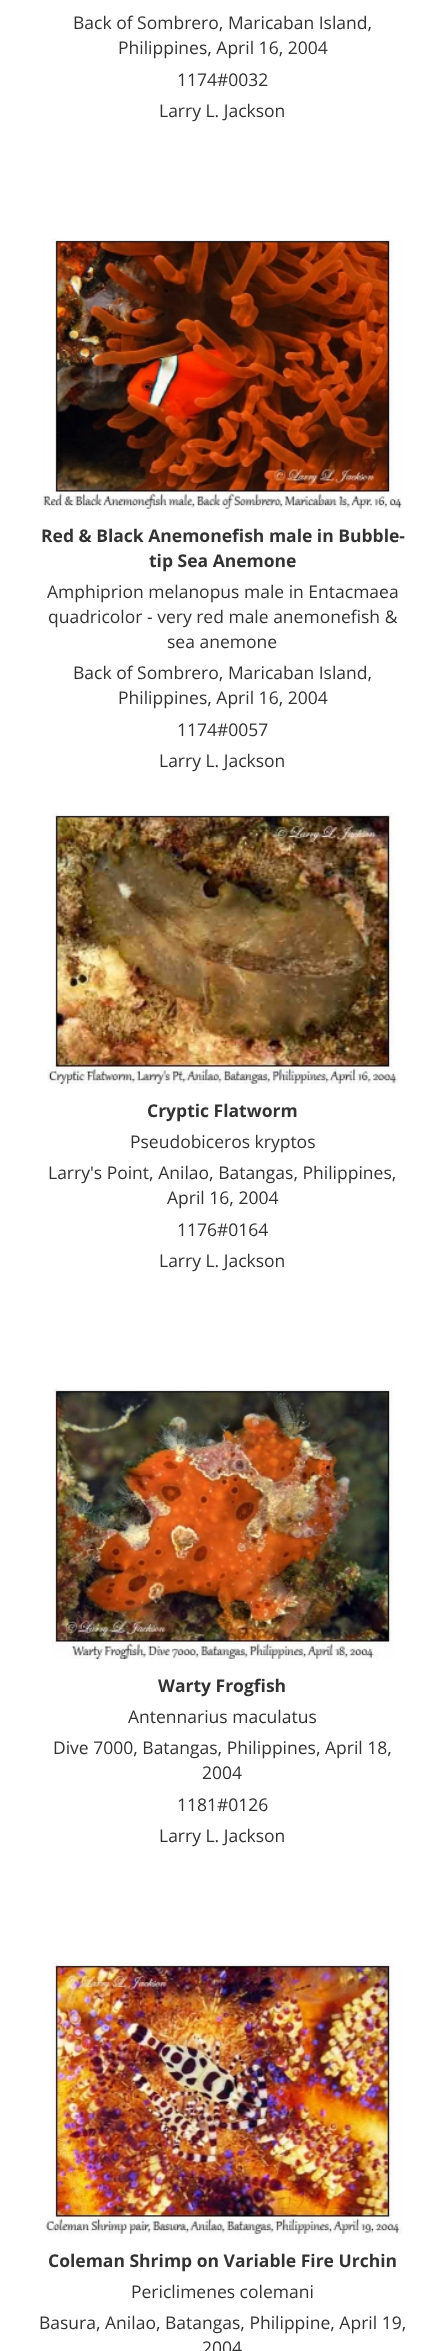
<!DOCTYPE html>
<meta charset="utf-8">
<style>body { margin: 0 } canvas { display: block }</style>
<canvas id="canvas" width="444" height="2351"></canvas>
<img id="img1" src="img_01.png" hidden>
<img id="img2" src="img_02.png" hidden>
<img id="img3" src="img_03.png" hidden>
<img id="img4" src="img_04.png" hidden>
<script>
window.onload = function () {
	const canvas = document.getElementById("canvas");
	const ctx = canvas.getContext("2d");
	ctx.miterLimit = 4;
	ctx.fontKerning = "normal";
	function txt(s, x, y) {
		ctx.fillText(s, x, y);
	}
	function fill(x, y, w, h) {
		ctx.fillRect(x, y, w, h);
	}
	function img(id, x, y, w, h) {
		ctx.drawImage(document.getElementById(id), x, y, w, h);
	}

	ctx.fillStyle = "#FFFFFF";
	fill(0, 0, 444, 2351);
	img("img1", 42, 239, 360, 270);
	img("img2", 47, 812, 351, 272);
	img("img3", 52, 1388, 342, 271);
	img("img4", 44, 1962, 359, 272);
	ctx.font = "17.5px Open Sans";
	ctx.fillStyle = "#333333";
	txt("Back of Sombrero, Maricaban Island,", 73, 29);
	txt("Philippines, April 16, 2004", 118, 54);
	txt("1174#0032", 177, 86);
	txt("Larry L. Jackson", 159, 117);
	ctx.font = "bold 17.5px Open Sans";
	txt("Red & Black Anemonefish male in Bubble-", 41, 542);
	txt("tip Sea Anemone", 149, 567);
	ctx.font = "17.5px Open Sans";
	txt("Amphiprion melanopus male in Entacmaea", 47, 598);
	txt("quadricolor - very red male anemonefish &", 48, 623);
	txt("sea anemone", 167, 648);
	txt("Back of Sombrero, Maricaban Island,", 73, 679);
	txt("Philippines, April 16, 2004", 118, 704);
	txt("1174#0057", 177, 736);
	txt("Larry L. Jackson", 159, 767);
	ctx.font = "bold 17.5px Open Sans";
	txt("Cryptic Flatworm", 147, 1117);
	ctx.font = "17.5px Open Sans";
	txt("Pseudobiceros kryptos", 130, 1148);
	txt("Larry's Point, Anilao, Batangas, Philippines,", 48, 1179);
	txt("April 16, 2004", 167, 1204);
	txt("1176#0164", 177, 1236);
	txt("Larry L. Jackson", 159, 1267);
	ctx.font = "bold 17.5px Open Sans";
	txt("Warty Frogfish", 158, 1692);
	ctx.font = "17.5px Open Sans";
	txt("Antennarius maculatus", 128, 1723);
	txt("Dive 7000, Batangas, Philippines, April 18,", 53, 1754);
	txt("2004", 202, 1779);
	txt("1181#0126", 177, 1811);
	txt("Larry L. Jackson", 159, 1842);
	ctx.font = "bold 17.5px Open Sans";
	txt("Coleman Shrimp on Variable Fire Urchin", 48, 2267);
	ctx.font = "17.5px Open Sans";
	txt("Periclimenes colemani", 131, 2298);
	txt("Basura, Anilao, Batangas, Philippine, April 19,", 39, 2329);
	txt("2004", 202, 2354);
};
</script>
